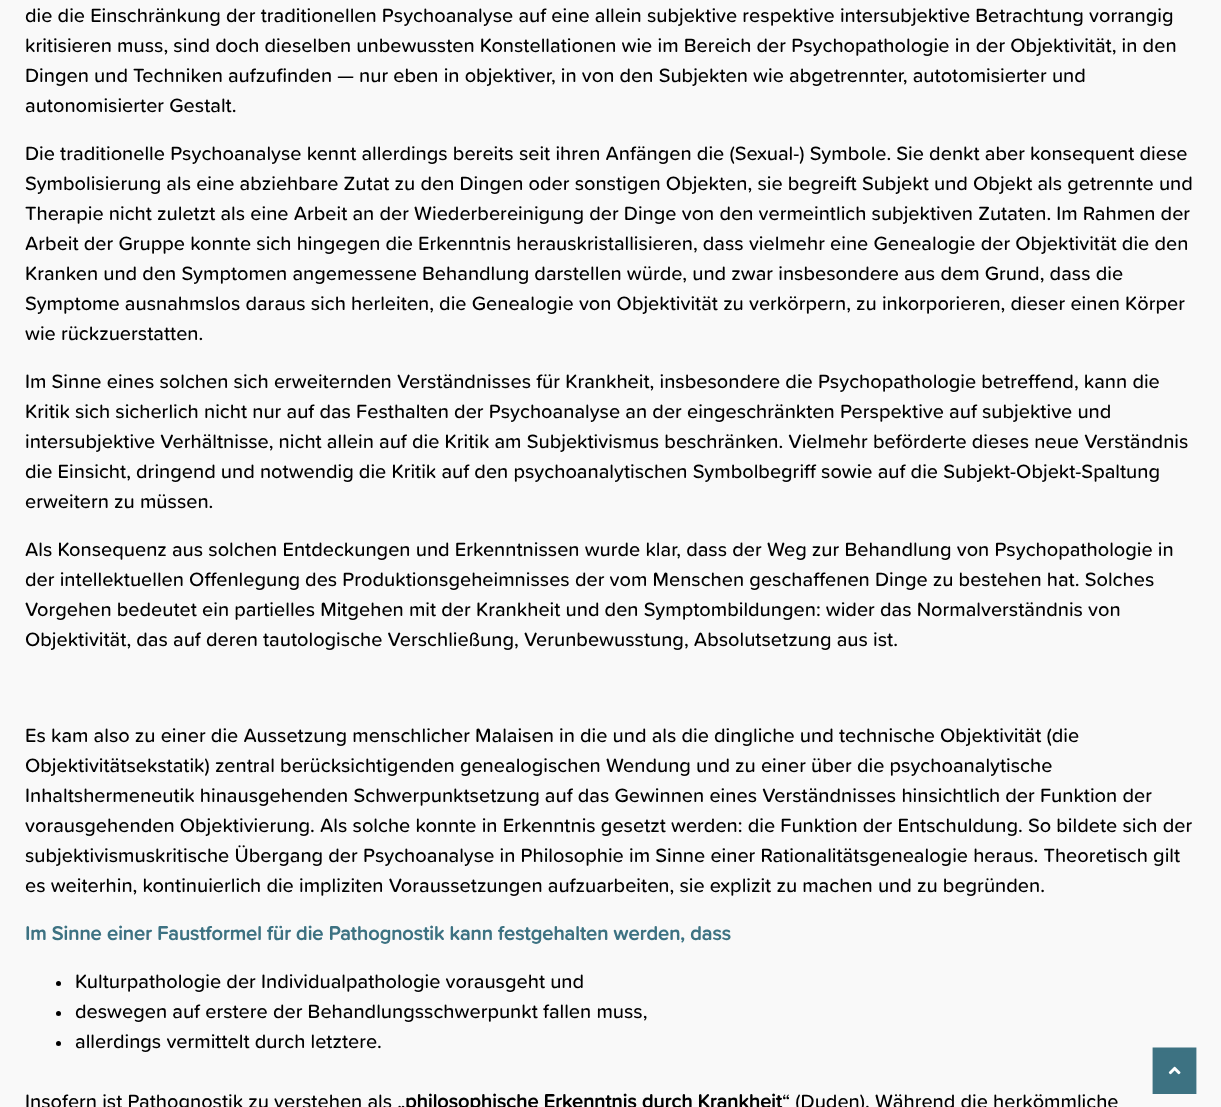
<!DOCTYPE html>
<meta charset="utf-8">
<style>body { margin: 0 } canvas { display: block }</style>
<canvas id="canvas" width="1221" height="1107"></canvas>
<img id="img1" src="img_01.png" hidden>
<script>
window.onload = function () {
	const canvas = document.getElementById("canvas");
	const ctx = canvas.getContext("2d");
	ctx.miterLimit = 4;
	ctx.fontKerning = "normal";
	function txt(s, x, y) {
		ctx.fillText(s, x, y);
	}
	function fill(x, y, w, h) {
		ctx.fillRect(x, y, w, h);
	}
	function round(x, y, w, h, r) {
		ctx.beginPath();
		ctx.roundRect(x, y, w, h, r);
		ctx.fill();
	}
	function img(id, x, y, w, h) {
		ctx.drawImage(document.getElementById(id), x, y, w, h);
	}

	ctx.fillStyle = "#F9F9F9";
	fill(0, 0, 1221, 1107);
	ctx.fillStyle = "#000000";
	ctx.beginPath();
	ctx.arc(58.5, 983.5, 2.5, 0, Math.PI * 2);
	ctx.fill();
	ctx.beginPath();
	ctx.arc(58.5, 1013.5, 2.5, 0, Math.PI * 2);
	ctx.fill();
	ctx.beginPath();
	ctx.arc(58.5, 1043.5, 2.5, 0, Math.PI * 2);
	ctx.fill();
	ctx.fillStyle = "#3D7282";
	round(1153, 1048, 43, 46, 1);
	ctx.beginPath();
	ctx.moveTo(1154.5, 1049.5);
	ctx.lineTo(1194.5, 1049.5);
	ctx.lineTo(1194.5, 1092);
	ctx.lineTo(1154.5, 1092);
	ctx.closePath();
	ctx.strokeStyle = "#3D7282";
	ctx.lineWidth = 3.8;
	ctx.stroke();
	img("img1", 1168, 1066, 13, 9);
	ctx.font = "500 20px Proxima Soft";
	ctx.fillStyle = "#000000";
	txt("die die Einschränkung der traditionellen Psychoanalyse auf eine allein subjektive respektive intersubjektive Betrachtung vorrangig", 25, 22);
	txt("kritisieren muss, sind doch dieselben unbewussten Konstellationen wie im Bereich der Psychopathologie in der Objektivität, in den", 25, 52);
	txt("Dingen und Techniken aufzufinden — nur eben in objektiver, in von den Subjekten wie abgetrennter, autotomisierter und", 25, 82);
	txt("autonomisierter Gestalt.", 25, 112);
	txt("Die traditionelle Psychoanalyse kennt allerdings bereits seit ihren Anfängen die (Sexual-) Symbole. Sie denkt aber konsequent diese", 25, 160);
	txt("Symbolisierung als eine abziehbare Zutat zu den Dingen oder sonstigen Objekten, sie begreift Subjekt und Objekt als getrennte und", 25, 190);
	txt("Therapie nicht zuletzt als eine Arbeit an der Wiederbereinigung der Dinge von den vermeintlich subjektiven Zutaten. Im Rahmen der", 25, 220);
	txt("Arbeit der Gruppe konnte sich hingegen die Erkenntnis herauskristallisieren, dass vielmehr eine Genealogie der Objektivität die den", 25, 250);
	txt("Kranken und den Symptomen angemessene Behandlung darstellen würde, und zwar insbesondere aus dem Grund, dass die", 25, 280);
	txt("Symptome ausnahmslos daraus sich herleiten, die Genealogie von Objektivität zu verkörpern, zu inkorporieren, dieser einen Körper", 25, 310);
	txt("wie rückzuerstatten.", 25, 340);
	txt("Im Sinne eines solchen sich erweiternden Verständnisses für Krankheit, insbesondere die Psychopathologie betreffend, kann die", 25, 388);
	txt("Kritik sich sicherlich nicht nur auf das Festhalten der Psychoanalyse an der eingeschränkten Perspektive auf subjektive und", 25, 418);
	txt("intersubjektive Verhältnisse, nicht allein auf die Kritik am Subjektivismus beschränken. Vielmehr beförderte dieses neue Verständnis", 25, 448);
	txt("die Einsicht, dringend und notwendig die Kritik auf den psychoanalytischen Symbolbegriff sowie auf die Subjekt-Objekt-Spaltung", 25, 478);
	txt("erweitern zu müssen.", 25, 508);
	txt("Als Konsequenz aus solchen Entdeckungen und Erkenntnissen wurde klar, dass der Weg zur Behandlung von Psychopathologie in", 25, 556);
	txt("der intellektuellen Offenlegung des Produktionsgeheimnisses der vom Menschen geschaffenen Dinge zu bestehen hat. Solches", 25, 586);
	txt("Vorgehen bedeutet ein partielles Mitgehen mit der Krankheit und den Symptombildungen: wider das Normalverständnis von", 25, 616);
	txt("Objektivität, das auf deren tautologische Verschließung, Verunbewusstung, Absolutsetzung aus ist.", 25, 646);
	txt("Es kam also zu einer die Aussetzung menschlicher Malaisen in die und als die dingliche und technische Objektivität (die", 25, 742);
	txt("Objektivitätsekstatik) zentral berücksichtigenden genealogischen Wendung und zu einer über die psychoanalytische", 25, 772);
	txt("Inhaltshermeneutik hinausgehenden Schwerpunktsetzung auf das Gewinnen eines Verständnisses hinsichtlich der Funktion der", 25, 802);
	txt("vorausgehenden Objektivierung. Als solche konnte in Erkenntnis gesetzt werden: die Funktion der Entschuldung. So bildete sich der", 25, 832);
	txt("subjektivismuskritische Übergang der Psychoanalyse in Philosophie im Sinne einer Rationalitätsgenealogie heraus. Theoretisch gilt", 25, 862);
	txt("es weiterhin, kontinuierlich die impliziten Voraussetzungen aufzuarbeiten, sie explizit zu machen und zu begründen.", 25, 892);
	ctx.font = "bold 20px Proxima Soft";
	ctx.fillStyle = "#3D7282";
	txt("Im Sinne einer Faustformel für die Pathognostik kann festgehalten werden, dass", 25, 940);
	ctx.font = "500 20px Proxima Soft";
	ctx.fillStyle = "#000000";
	txt("Kulturpathologie der Individualpathologie vorausgeht und", 75, 988);
	txt("deswegen auf erstere der Behandlungsschwerpunkt fallen muss,", 75, 1018);
	txt("allerdings vermittelt durch letztere.", 75, 1048);
	txt("Insofern ist Pathognostik zu verstehen als „", 25, 1108);
	ctx.font = "bold 20px Proxima Soft";
	txt("philosophische Erkenntnis durch Krankheit", 405, 1108);
	ctx.font = "500 20px Proxima Soft";
	txt("“ (Duden). Während die herkömmliche", 782, 1108);
};
</script>
